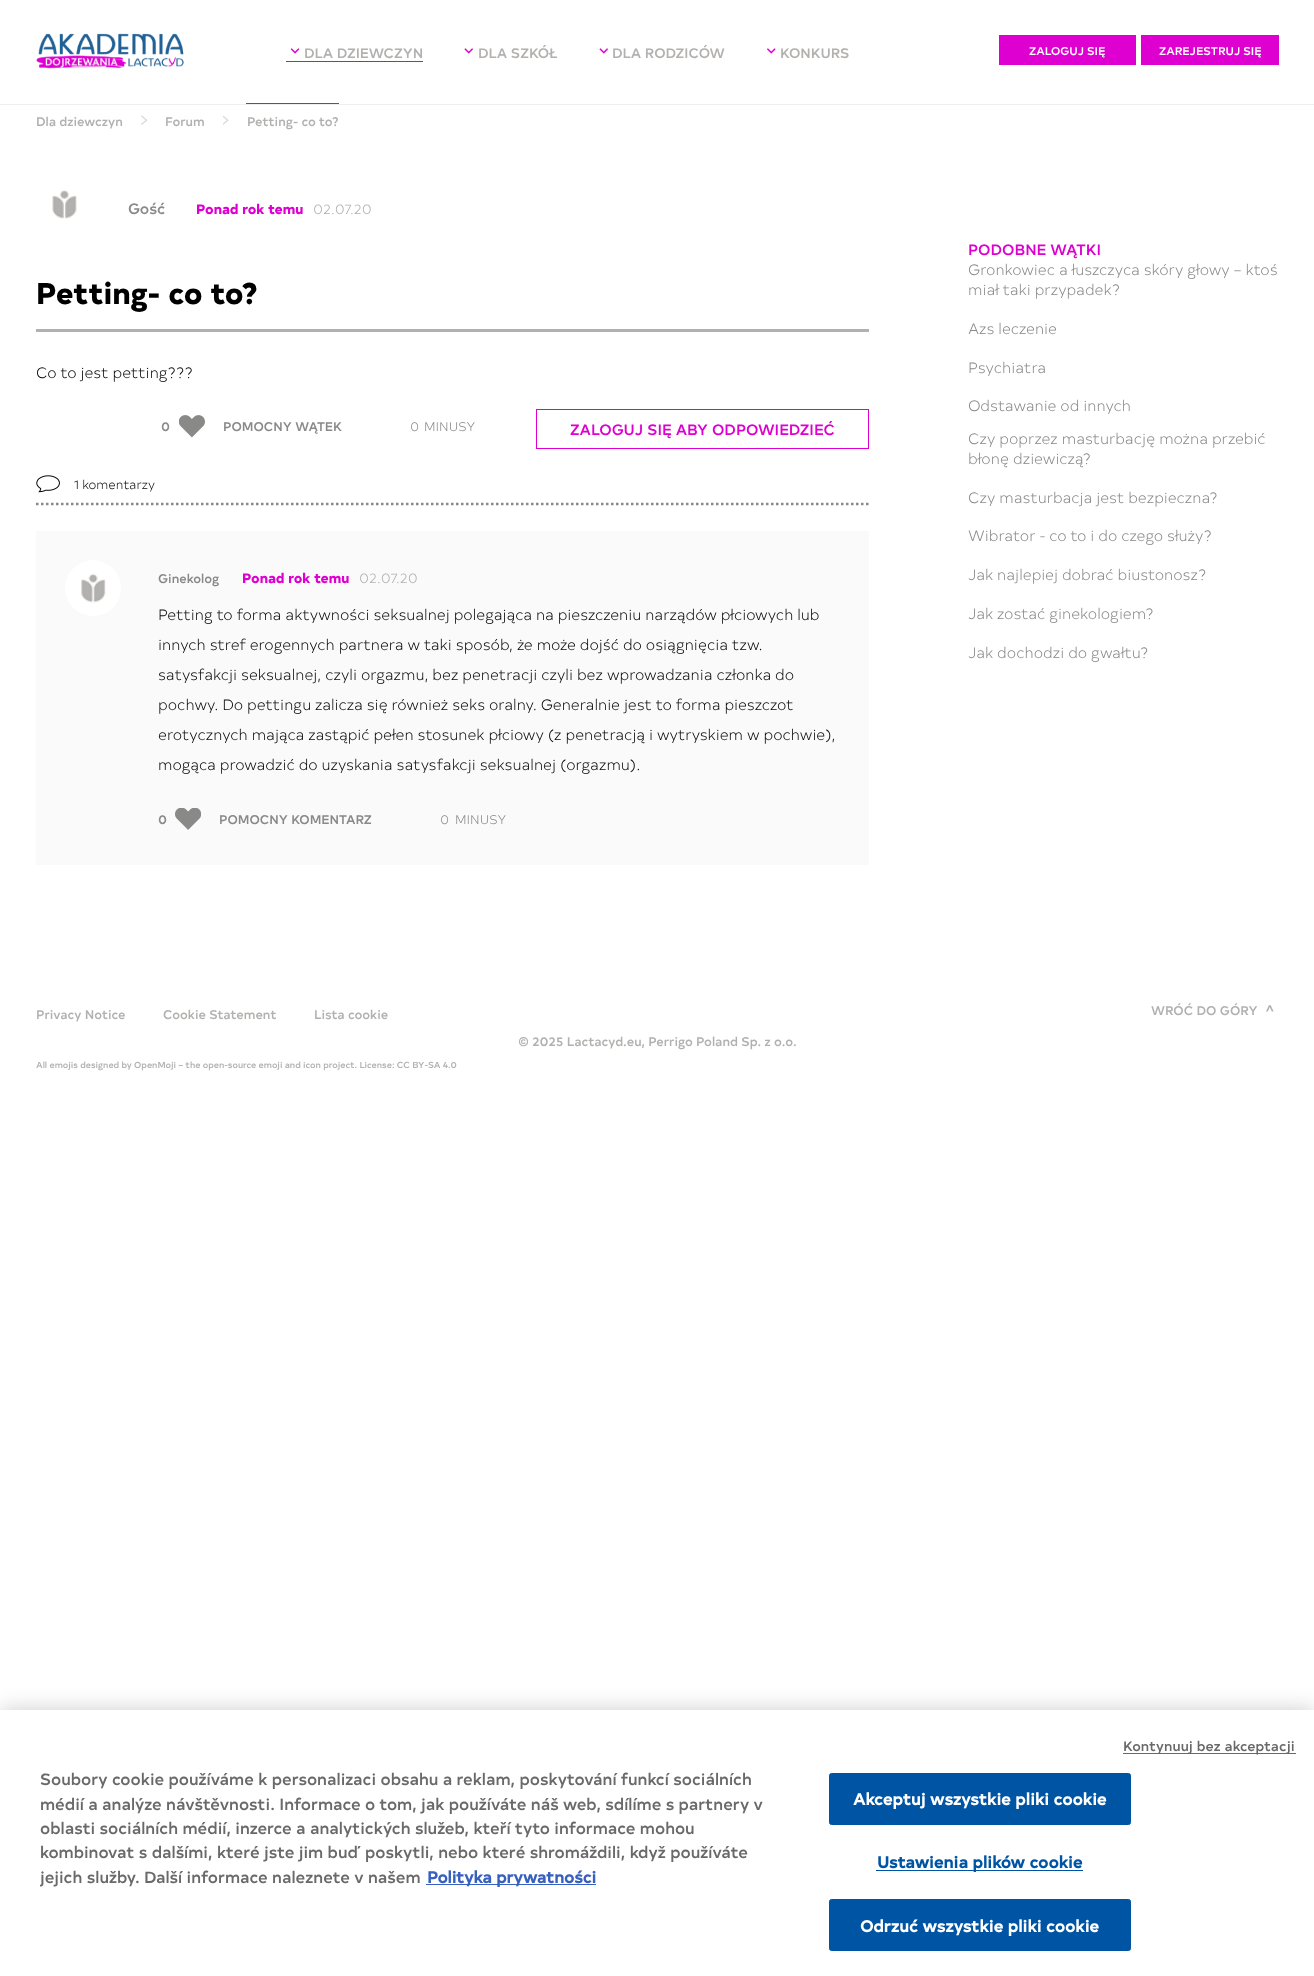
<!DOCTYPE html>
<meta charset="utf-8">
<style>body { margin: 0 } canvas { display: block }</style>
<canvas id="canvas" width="1314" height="1976"></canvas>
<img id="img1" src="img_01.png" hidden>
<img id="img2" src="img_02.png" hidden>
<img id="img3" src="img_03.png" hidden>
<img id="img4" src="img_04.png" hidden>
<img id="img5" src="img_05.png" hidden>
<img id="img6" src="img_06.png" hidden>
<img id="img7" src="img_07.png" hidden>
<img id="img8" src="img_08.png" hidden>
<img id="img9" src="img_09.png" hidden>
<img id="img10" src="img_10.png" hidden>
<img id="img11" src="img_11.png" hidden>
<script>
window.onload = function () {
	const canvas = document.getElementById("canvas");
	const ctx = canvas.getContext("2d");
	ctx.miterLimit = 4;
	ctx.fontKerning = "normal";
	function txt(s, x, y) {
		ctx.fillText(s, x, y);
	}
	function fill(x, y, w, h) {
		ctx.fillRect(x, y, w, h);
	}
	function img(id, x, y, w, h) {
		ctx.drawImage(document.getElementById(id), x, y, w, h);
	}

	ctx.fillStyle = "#FFFFFF";
	fill(0, 0, 1314, 1976);
	img("img1", 36, 33, 148, 36);
	img("img2", 290, 48, 10, 6);
	ctx.fillStyle = "#DD00D0";
	fill(286, 61, 137, 1);
	img("img3", 464, 48, 9, 6);
	img("img3", 599, 48, 9, 6);
	img("img4", 767, 48, 9, 6);
	fill(999, 35, 137, 30);
	fill(1141, 35, 138, 30);
	ctx.fillStyle = "#F0EFEF";
	fill(0, 104, 1314, 1);
	img("img5", 141, 115, 7, 10);
	img("img6", 223, 115, 6, 10);
	ctx.fillStyle = "#DD00D0";
	fill(246, 103, 93, 1);
	img("img7", 52, 190, 25, 29);
	ctx.fillStyle = "#B3B1AF";
	fill(36, 329, 833, 3);
	img("img8", 179, 415, 26, 23);
	ctx.strokeStyle = "#DD00D0";
	ctx.strokeRect(536.5, 409.5, 332, 39);
	img("img9", 36, 475, 24, 18);
	ctx.beginPath();
	ctx.moveTo(36, 504);
	ctx.lineTo(869, 504);
	ctx.strokeStyle = "#898988";
	ctx.lineWidth = 2.5;
	ctx.setLineDash([2.5, 2.5]);
	ctx.stroke();
	ctx.fillStyle = "#FAFAFA";
	fill(36, 531, 833, 334);
	img("img10", 65, 560, 56, 56);
	img("img11", 175, 808, 26, 22);
	ctx.fillStyle = "rgba(0, 0, 0, 0.2)";
	ctx.filter = "blur(11px)";
	ctx.beginPath();
	ctx.rect(0, 1710, 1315, 266);
	ctx.fill();
	ctx.filter = "none";
	ctx.fillStyle = "#FFFFFF";
	fill(0, 1710, 1314, 266);
	ctx.fillStyle = "#696969";
	fill(1123, 1753, 173, 1);
	ctx.fillStyle = "#3860BE";
	fill(426, 1884, 170, 1);
	ctx.fillStyle = "#0054A4";
	ctx.beginPath();
	ctx.roundRect(829.5, 1773.5, 301, 51, 2);
	ctx.fill();
	ctx.strokeStyle = "#0054A4";
	ctx.lineWidth = 1;
	ctx.setLineDash([]);
	ctx.stroke();
	fill(876, 1870, 207, 1);
	ctx.beginPath();
	ctx.roundRect(829.5, 1899.5, 301, 51, 2);
	ctx.fill();
	ctx.stroke();
	ctx.font = "500 13.75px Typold";
	ctx.fillStyle = "#B3B1AF";
	txt("DLA DZIEWCZYN", 304, 58);
	txt("DLA SZKÓŁ", 478, 58);
	txt("DLA RODZICÓW", 612, 58);
	txt("KONKURS", 780, 58);
	ctx.font = "500 11.25px Typold";
	ctx.fillStyle = "#FFFFFF";
	txt("ZALOGUJ SIĘ", 1029, 55);
	txt("ZAREJESTRUJ SIĘ", 1159, 55);
	ctx.font = "500 12.5px Typold";
	ctx.fillStyle = "#B3B1AF";
	txt("Dla dziewczyn", 36, 126);
	txt("Forum", 165, 126);
	txt("Petting- co to?", 247, 126);
	ctx.font = "500 15px Typold";
	ctx.fillStyle = "#898988";
	txt("Gość", 128, 214);
	ctx.font = "800 13.75px Typold";
	ctx.fillStyle = "#DD00D0";
	txt("Ponad rok temu", 196, 214);
	ctx.font = "300 13.75px Typold";
	ctx.fillStyle = "#B3B1AF";
	txt("02.07.20", 313, 214);
	ctx.font = "800 30px Typold";
	ctx.fillStyle = "#000000";
	txt("Petting- co to?", 36, 304);
	ctx.font = "300 15px Typold";
	ctx.fillStyle = "#080808";
	txt("Co to jest petting???", 36, 378);
	ctx.font = "500 12.5px Typold";
	ctx.fillStyle = "#898988";
	txt("0", 161, 431);
	txt("POMOCNY WĄTEK", 223, 431);
	ctx.font = "300 12.5px Typold";
	txt("0", 410, 431);
	txt("MINUSY", 424, 431);
	ctx.font = "500 15px Typold";
	ctx.fillStyle = "#DD00D0";
	txt("ZALOGUJ SIĘ ABY ODPOWIEDZIEĆ", 570, 435);
	ctx.font = "300 12.5px Typold";
	ctx.fillStyle = "#080808";
	txt("1 komentarzy", 74, 489);
	ctx.font = "500 12.5px Typold";
	ctx.fillStyle = "#898988";
	txt("Ginekolog", 158, 583);
	ctx.font = "800 13.75px Typold";
	ctx.fillStyle = "#DD00D0";
	txt("Ponad rok temu", 242, 583);
	ctx.font = "300 13.75px Typold";
	ctx.fillStyle = "#B3B1AF";
	txt("02.07.20", 359, 583);
	ctx.font = "300 15px Typold";
	ctx.fillStyle = "#080808";
	txt("Petting to forma aktywności seksualnej polegająca na pieszczeniu narządów płciowych lub", 158, 620);
	txt("innych stref erogennych partnera w taki sposób, że może dojść do osiągnięcia tzw.", 158, 650);
	txt("satysfakcji seksualnej, czyli orgazmu, bez penetracji czyli bez wprowadzania członka do", 158, 680);
	txt("pochwy. Do pettingu zalicza się również seks oralny. Generalnie jest to forma pieszczot", 158, 710);
	txt("erotycznych mająca zastąpić pełen stosunek płciowy (z penetracją i wytryskiem w pochwie),", 158, 740);
	txt("mogąca prowadzić do uzyskania satysfakcji seksualnej (orgazmu).", 158, 770);
	ctx.font = "500 12.5px Typold";
	ctx.fillStyle = "#898988";
	txt("0", 158, 824);
	txt("POMOCNY KOMENTARZ", 219, 824);
	ctx.font = "300 12.5px Typold";
	txt("0", 440, 824);
	txt("MINUSY", 455, 824);
	ctx.font = "500 15px Typold";
	ctx.fillStyle = "#DD00D0";
	txt("PODOBNE WĄTKI", 968, 255);
	ctx.font = "300 15px Typold";
	ctx.fillStyle = "#898988";
	txt("Gronkowiec a łuszczyca skóry głowy – ktoś", 968, 275);
	txt("miał taki przypadek?", 968, 295);
	txt("Azs leczenie", 968, 334);
	txt("Psychiatra", 968, 373);
	txt("Odstawanie od innych", 968, 411);
	txt("Czy poprzez masturbację można przebić", 968, 444);
	txt("błonę dziewiczą?", 968, 464);
	txt("Czy masturbacja jest bezpieczna?", 968, 503);
	txt("Wibrator - co to i do czego służy?", 968, 541);
	txt("Jak najlepiej dobrać biustonosz?", 968, 580);
	txt("Jak zostać ginekologiem?", 968, 619);
	txt("Jak dochodzi do gwałtu?", 968, 658);
	ctx.font = "500 12.5px Typold";
	ctx.fillStyle = "#B3B1AF";
	txt("Privacy Notice", 36, 1019);
	txt("Cookie Statement", 163, 1019);
	txt("Lista cookie", 314, 1019);
	txt("WRÓĆ DO GÓRY", 1151, 1015);
	ctx.font = "500 15px Typold";
	ctx.save();
	ctx.translate(1274, 1012);
	ctx.rotate(-90 * Math.PI / 180);
	ctx.fillText(">", 0, 0);
	ctx.restore();
	ctx.font = "500 12.5px Typold";
	txt("© 2025 Lactacyd.eu, Perrigo Poland Sp. z o.o.", 518, 1046);
	ctx.font = "500 8.75px Typold";
	txt("All emojis designed by OpenMoji – the open-source emoji and icon project. License: CC BY-SA 4.0", 36, 1068);
	ctx.letterSpacing = "0.1px";
	ctx.font = "500 13.75px Typold";
	ctx.fillStyle = "#696969";
	txt("Kontynuuj bez akceptacji", 1123, 1751);
	ctx.letterSpacing = "0px";
	ctx.font = "500 16.25px Typold";
	txt("Soubory cookie používáme k personalizaci obsahu a reklam, poskytování funkcí sociálních", 40, 1785);
	txt("médií a analýze návštěvnosti. Informace o tom, jak používáte náš web, sdílíme s partnery v", 40, 1810);
	txt("oblasti sociálních médií, inzerce a analytických služeb, kteří tyto informace mohou", 40, 1834);
	txt("kombinovat s dalšími, které jste jim buď poskytli, nebo které shromáždili, když používáte", 40, 1858);
	ctx.save();
	ctx.beginPath();
	ctx.rect(40, 1766, 749, 123);
	ctx.clip();
	txt("jejich služby. Další informace naleznete v našem", 40, 1883);
	ctx.restore();
	ctx.font = "bold 16.25px Typold";
	ctx.fillStyle = "#3860BE";
	txt("Polityka prywatności", 427, 1883);
	ctx.letterSpacing = "0.15px";
	ctx.fillStyle = "#FFFFFF";
	txt("Akceptuj wszystkie pliki cookie", 853, 1805);
	ctx.fillStyle = "#0054A4";
	txt("Ustawienia plików cookie", 877, 1868);
	ctx.fillStyle = "#FFFFFF";
	txt("Odrzuć wszystkie pliki cookie", 860, 1932);
};
</script>
